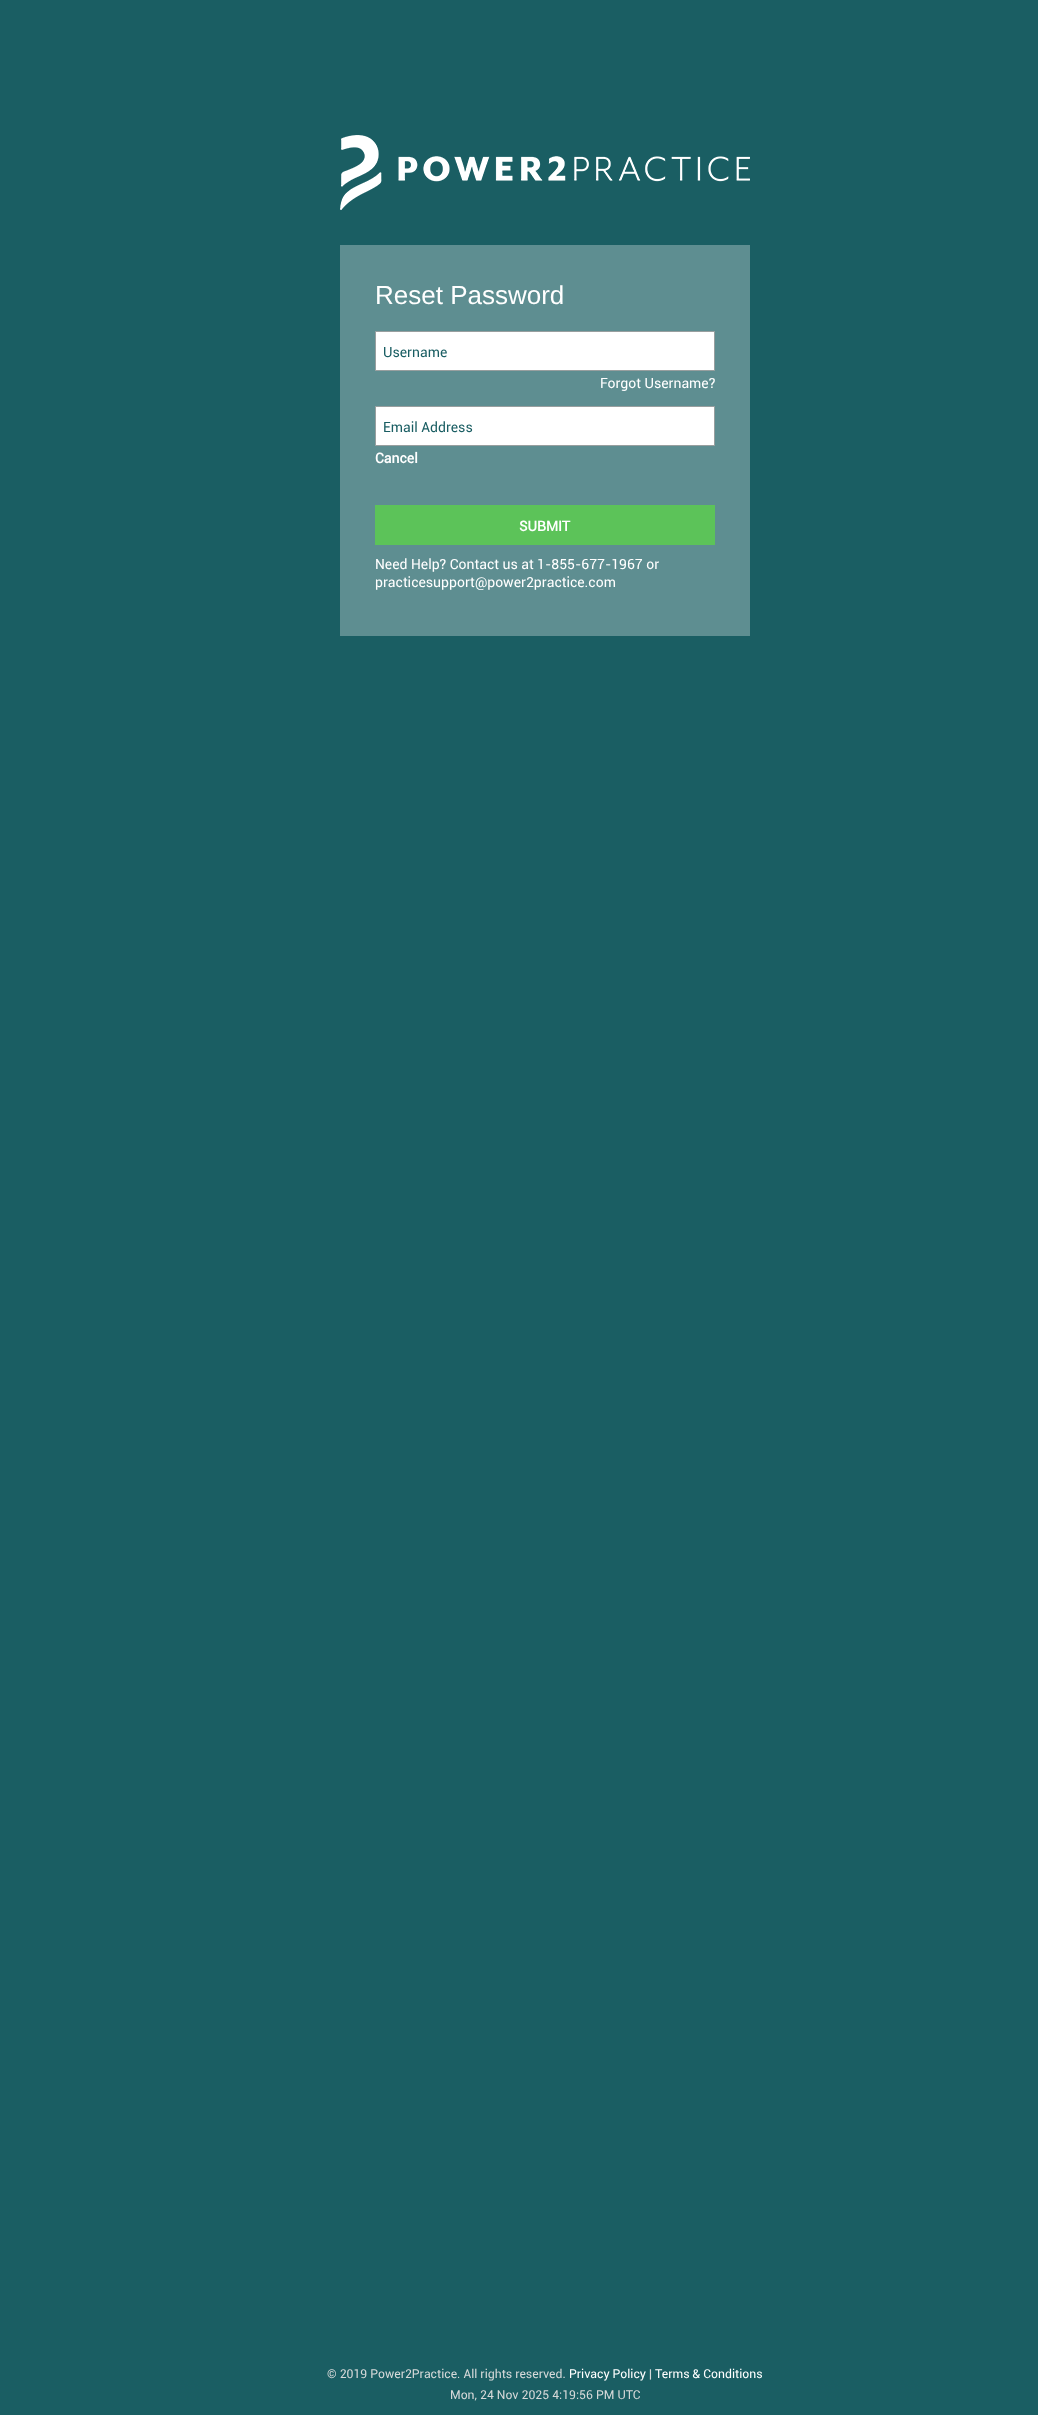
<!DOCTYPE html>
<meta charset="utf-8">
<style>body { margin: 0 } canvas { display: block }</style>
<canvas id="canvas" width="1038" height="2415"></canvas>
<img id="img1" src="img_01.png" hidden>
<script>
window.onload = function () {
	const canvas = document.getElementById("canvas");
	const ctx = canvas.getContext("2d");
	ctx.miterLimit = 4;
	ctx.fontKerning = "normal";
	function txt(s, x, y) {
		ctx.fillText(s, x, y);
	}
	function fill(x, y, w, h) {
		ctx.fillRect(x, y, w, h);
	}
	function img(id, x, y, w, h) {
		ctx.drawImage(document.getElementById(id), x, y, w, h);
	}

	ctx.fillStyle = "#1A5E63";
	fill(0, 0, 1038, 2415);
	img("img1", 340, 135, 410, 75);
	ctx.fillStyle = "#5E8E91";
	fill(340, 245, 410, 391);
	ctx.fillStyle = "#FFFFFF";
	ctx.beginPath();
	ctx.rect(375.5, 331.5, 339, 39);
	ctx.fill();
	ctx.strokeStyle = "#989F9F";
	ctx.stroke();
	ctx.beginPath();
	ctx.rect(375.5, 406.5, 339, 39);
	ctx.fill();
	ctx.stroke();
	ctx.fillStyle = "#5CC359";
	fill(375, 505, 340, 40);
	ctx.font = "26px Liberation Sans";
	ctx.fillStyle = "#FFFFFF";
	txt("Reset Password", 375, 304);
	ctx.font = "14px Roboto";
	ctx.fillStyle = "#1A5E63";
	txt("Username", 383, 357);
	ctx.fillStyle = "#FFFFFF";
	txt("Forgot Username?", 600, 388);
	ctx.fillStyle = "#1A5E63";
	txt("Email Address", 383, 432);
	ctx.font = "bold 14px Roboto";
	ctx.fillStyle = "#FFFFFF";
	txt("Cancel", 375, 463);
	txt("SUBMIT", 519, 531);
	ctx.font = "14px Roboto";
	txt("Need Help? Contact us at 1-855-677-1967 or", 375, 569);
	txt("practicesupport@power2practice.com", 375, 587);
	ctx.font = "12.25px Roboto";
	ctx.fillStyle = "#D6D9D9";
	txt("© 2019 Power2Practice. All rights reserved.", 327, 2378);
	ctx.fillStyle = "#FFFFFF";
	txt("Privacy Policy", 569, 2378);
	ctx.fillStyle = "#D6D9D9";
	txt("|", 649, 2378);
	ctx.fillStyle = "#FFFFFF";
	txt("Terms & Conditions", 655, 2378);
	ctx.fillStyle = "#D6D9D9";
	txt("Mon, 24 Nov 2025 4:19:56 PM UTC", 450, 2399);
};
</script>
